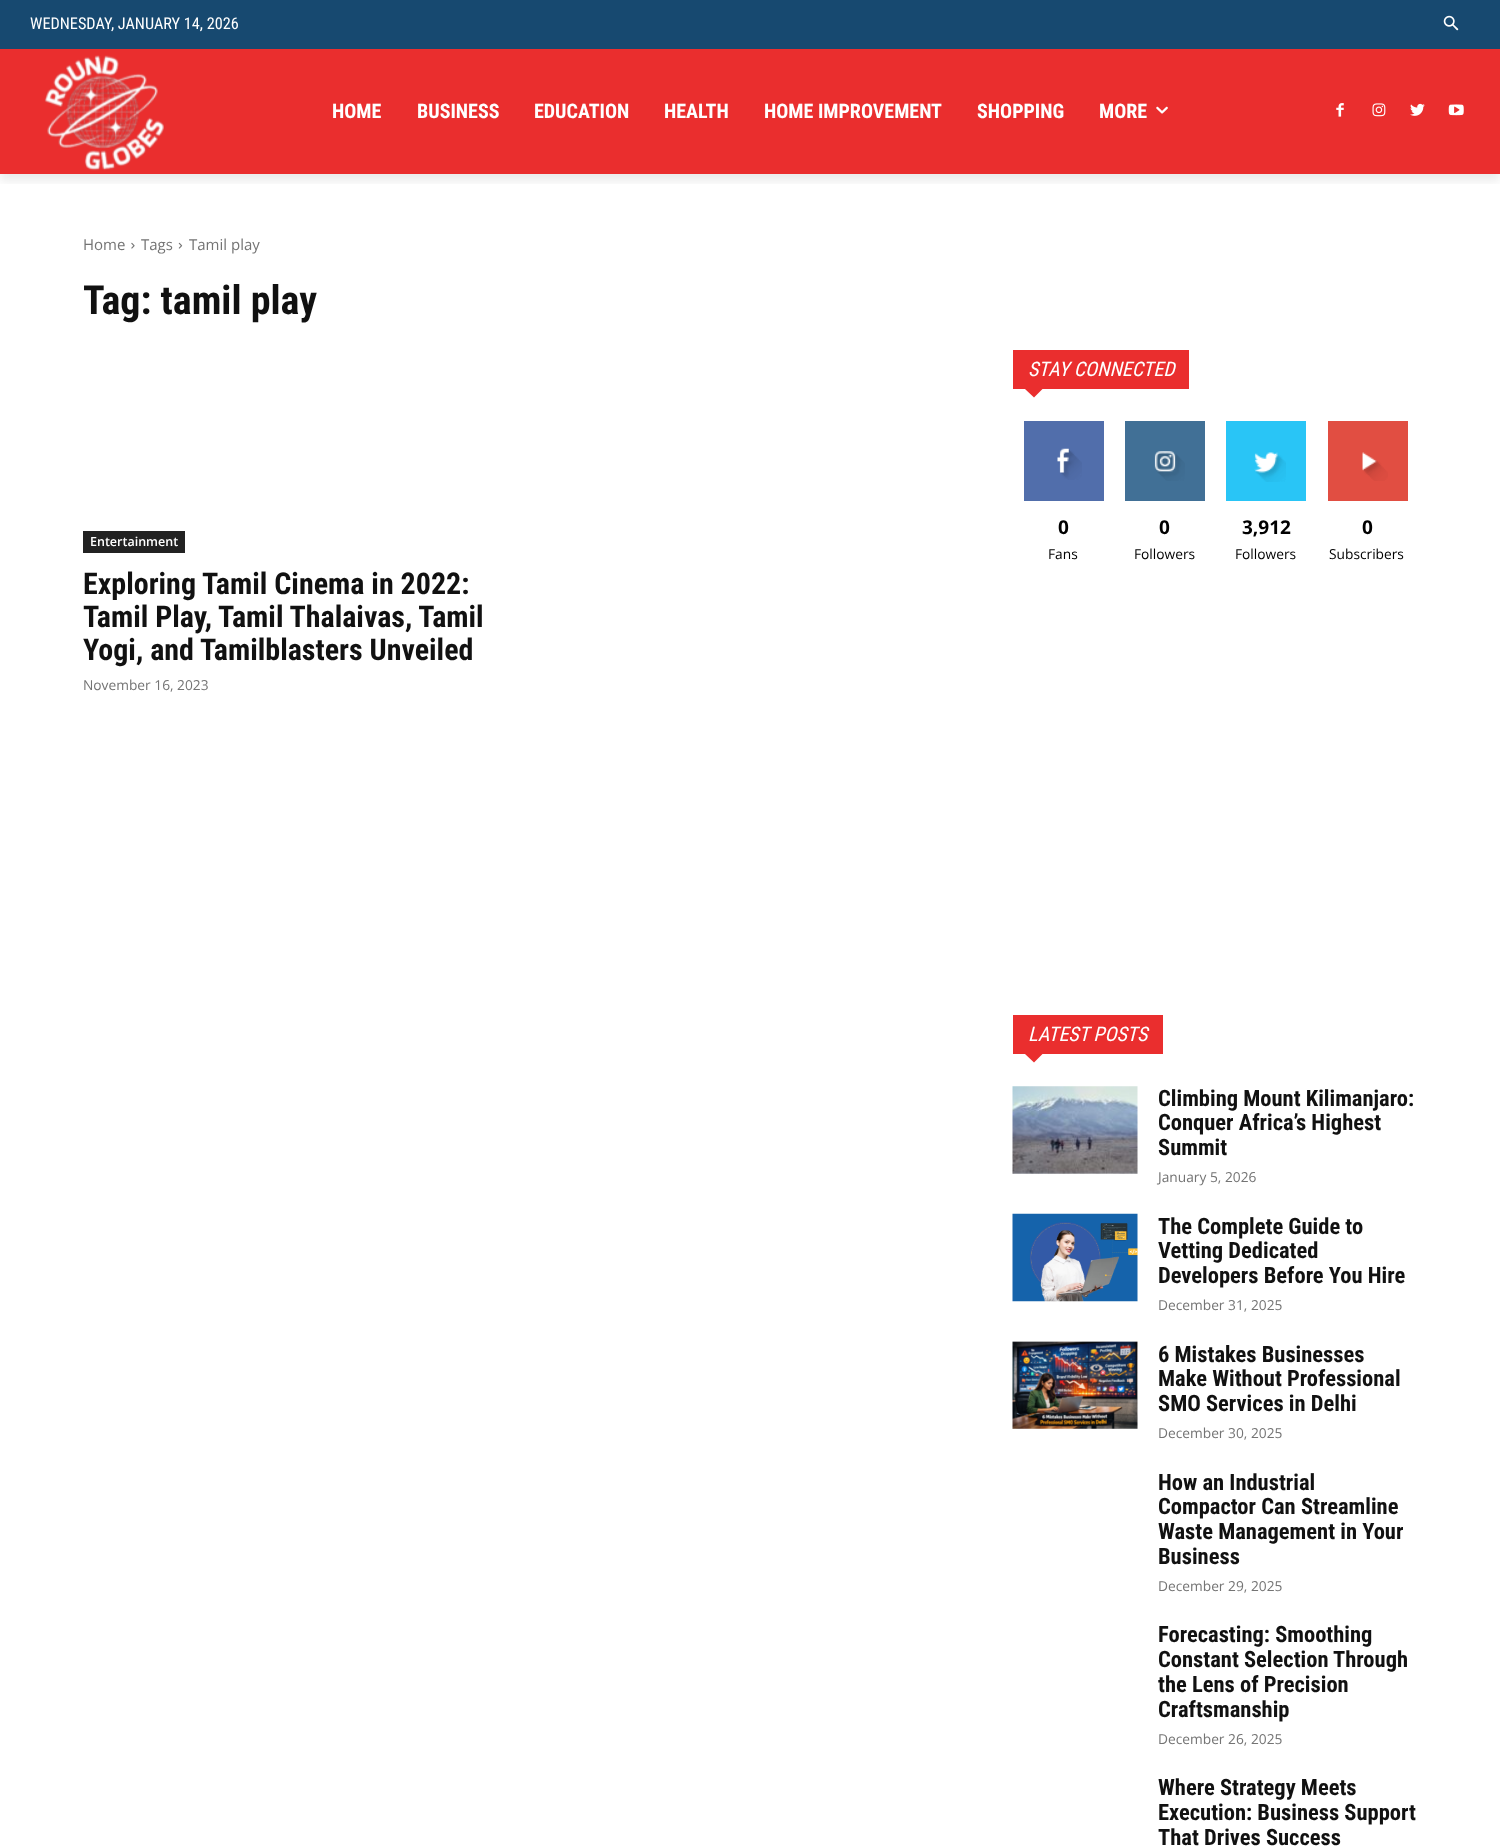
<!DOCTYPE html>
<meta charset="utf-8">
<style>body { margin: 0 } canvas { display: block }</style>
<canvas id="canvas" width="1500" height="1846"></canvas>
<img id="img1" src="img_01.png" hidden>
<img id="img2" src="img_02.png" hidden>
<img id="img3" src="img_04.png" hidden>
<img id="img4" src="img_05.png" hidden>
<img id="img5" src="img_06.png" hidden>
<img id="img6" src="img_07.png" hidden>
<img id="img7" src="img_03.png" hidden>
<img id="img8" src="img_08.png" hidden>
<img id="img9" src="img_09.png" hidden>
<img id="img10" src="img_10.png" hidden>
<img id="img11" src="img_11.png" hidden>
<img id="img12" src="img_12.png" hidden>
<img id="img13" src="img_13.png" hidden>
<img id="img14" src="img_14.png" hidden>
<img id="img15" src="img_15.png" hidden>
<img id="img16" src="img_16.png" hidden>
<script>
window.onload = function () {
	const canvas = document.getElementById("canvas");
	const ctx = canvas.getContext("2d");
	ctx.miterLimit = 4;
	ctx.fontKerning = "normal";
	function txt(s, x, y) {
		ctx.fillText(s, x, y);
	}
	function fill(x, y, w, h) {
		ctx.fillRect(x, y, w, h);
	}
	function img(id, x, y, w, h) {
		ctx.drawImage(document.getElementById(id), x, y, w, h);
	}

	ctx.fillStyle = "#FFFFFF";
	fill(0, 0, 1500, 1846);
	ctx.fillStyle = "#174970";
	fill(0, 0, 1500, 49);
	img("img1", 1443, 15, 16, 16);
	ctx.fillStyle = "#EA2E2E";
	fill(0, 49, 1500, 125);
	img("img2", 44, 55, 120, 116);
	img("img3", 1336, 103, 8, 14);
	img("img4", 1372, 103, 14, 14);
	img("img5", 1410, 103, 15, 13);
	img("img6", 1448, 104, 16, 12);
	ctx.save();
	ctx.beginPath();
	ctx.rect(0, 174, 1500, 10);
	ctx.clip();
	ctx.fillStyle = "rgba(0, 0, 0, 0.08)";
	ctx.filter = "blur(5px)";
	ctx.beginPath();
	ctx.rect(0, 56, 1500, 125);
	ctx.fill();
	ctx.filter = "none";
	ctx.restore();
	img("img7", 1156, 106, 12, 8);
	img("img8", 131, 242, 4, 7);
	img("img9", 178, 242, 5, 7);
	ctx.fillStyle = "#222222";
	fill(83, 531, 102, 22);
	ctx.fillStyle = "#EA2E2E";
	fill(1013, 350, 176, 39);
	ctx.beginPath();
	ctx.moveTo(1025, 389);
	ctx.lineTo(1042.5, 389);
	ctx.lineTo(1034, 397.5);
	ctx.closePath();
	ctx.fill();
	ctx.fillStyle = "#516EAB";
	fill(1024, 421, 80, 80);
	img("img10", 1057, 448, 25, 32);
	ctx.fillStyle = "#417096";
	fill(1125, 421, 80, 80);
	img("img11", 1154, 451, 31, 30);
	ctx.fillStyle = "#29C5F6";
	fill(1226, 421, 80, 80);
	img("img12", 1254, 452, 32, 30);
	ctx.fillStyle = "#E14E42";
	fill(1328, 421, 80, 80);
	img("img13", 1362, 452, 26, 29);
	ctx.fillStyle = "#EA2E2E";
	fill(1013, 1015, 150, 39);
	ctx.beginPath();
	ctx.moveTo(1025, 1054);
	ctx.lineTo(1042.5, 1054);
	ctx.lineTo(1034, 1062.5);
	ctx.closePath();
	ctx.fill();
	img("img14", 1012, 1086, 126, 88);
	img("img15", 1012, 1213, 126, 89);
	img("img16", 1012, 1341, 126, 88);
	ctx.font = "16.25px Roboto Condensed";
	ctx.fillStyle = "#FFFFFF";
	txt("WEDNESDAY, JANUARY 14, 2026", 30, 29);
	ctx.font = "bold 20px Roboto Condensed";
	txt("HOME", 332, 118);
	txt("BUSINESS", 417, 118);
	txt("EDUCATION", 534, 118);
	txt("HEALTH", 664, 118);
	txt("HOME IMPROVEMENT", 764, 118);
	txt("SHOPPING", 977, 118);
	txt("MORE", 1099, 118);
	ctx.font = "15px Open Sans";
	ctx.fillStyle = "#747474";
	txt("Home", 83, 250);
	txt("Tags", 141, 250);
	txt("Tamil play", 189, 250);
	ctx.font = "bold 40px Roboto Condensed";
	ctx.fillStyle = "#111111";
	txt("Tag: tamil play", 83, 314);
	ctx.font = "600 12.5px Open Sans";
	ctx.fillStyle = "#FFFFFF";
	txt("Entertainment", 90, 546);
	ctx.font = "bold 30px Roboto Condensed";
	ctx.fillStyle = "#111111";
	txt("Exploring Tamil Cinema in 2022:", 83, 594);
	txt("Tamil Play, Tamil Thalaivas, Tamil", 83, 627);
	txt("Yogi, and Tamilblasters Unveiled", 83, 660);
	ctx.font = "13.75px Open Sans";
	ctx.fillStyle = "#747474";
	txt("November 16, 2023", 83, 690);
	ctx.font = "italic 20px Roboto Condensed";
	ctx.fillStyle = "#FFFFFF";
	txt("STAY CONNECTED", 1028, 376);
	ctx.font = "bold 19px Open Sans";
	ctx.fillStyle = "#000000";
	txt("0", 1058, 534);
	ctx.font = "13.75px Open Sans";
	txt("Fans", 1048, 559);
	ctx.font = "bold 19px Open Sans";
	txt("0", 1159, 534);
	ctx.font = "13.75px Open Sans";
	txt("Followers", 1134, 559);
	ctx.font = "bold 19px Open Sans";
	txt("3,912", 1242, 534);
	ctx.font = "13.75px Open Sans";
	txt("Followers", 1235, 559);
	ctx.font = "bold 19px Open Sans";
	txt("0", 1362, 534);
	ctx.font = "13.75px Open Sans";
	txt("Subscribers", 1329, 559);
	ctx.font = "italic 20px Roboto Condensed";
	ctx.fillStyle = "#FFFFFF";
	txt("LATEST POSTS", 1028, 1041);
	ctx.font = "bold 22.5px Roboto Condensed";
	ctx.fillStyle = "#111111";
	txt("Climbing Mount Kilimanjaro:", 1158, 1106);
	txt("Conquer Africa’s Highest", 1158, 1130);
	txt("Summit", 1158, 1155);
	ctx.font = "13.75px Open Sans";
	ctx.fillStyle = "#747474";
	txt("January 5, 2026", 1158, 1182);
	ctx.font = "bold 22.5px Roboto Condensed";
	ctx.fillStyle = "#111111";
	txt("The Complete Guide to", 1158, 1234);
	txt("Vetting Dedicated", 1158, 1258);
	txt("Developers Before You Hire", 1158, 1283);
	ctx.font = "13.75px Open Sans";
	ctx.fillStyle = "#747474";
	txt("December 31, 2025", 1158, 1310);
	ctx.font = "bold 22.5px Roboto Condensed";
	ctx.fillStyle = "#111111";
	txt("6 Mistakes Businesses", 1158, 1362);
	txt("Make Without Professional", 1158, 1386);
	txt("SMO Services in Delhi", 1158, 1411);
	ctx.font = "13.75px Open Sans";
	ctx.fillStyle = "#747474";
	txt("December 30, 2025", 1158, 1438);
	ctx.font = "bold 22.5px Roboto Condensed";
	ctx.fillStyle = "#111111";
	txt("How an Industrial", 1158, 1490);
	txt("Compactor Can Streamline", 1158, 1514);
	txt("Waste Management in Your", 1158, 1539);
	txt("Business", 1158, 1564);
	ctx.font = "13.75px Open Sans";
	ctx.fillStyle = "#747474";
	txt("December 29, 2025", 1158, 1591);
	ctx.font = "bold 22.5px Roboto Condensed";
	ctx.fillStyle = "#111111";
	txt("Forecasting: Smoothing", 1158, 1642);
	txt("Constant Selection Through", 1158, 1667);
	txt("the Lens of Precision", 1158, 1692);
	txt("Craftsmanship", 1158, 1717);
	ctx.font = "13.75px Open Sans";
	ctx.fillStyle = "#747474";
	txt("December 26, 2025", 1158, 1744);
	ctx.font = "bold 22.5px Roboto Condensed";
	ctx.fillStyle = "#111111";
	txt("Where Strategy Meets", 1158, 1795);
	txt("Execution: Business Support", 1158, 1820);
	txt("That Drives Success", 1158, 1845);
};
</script>
